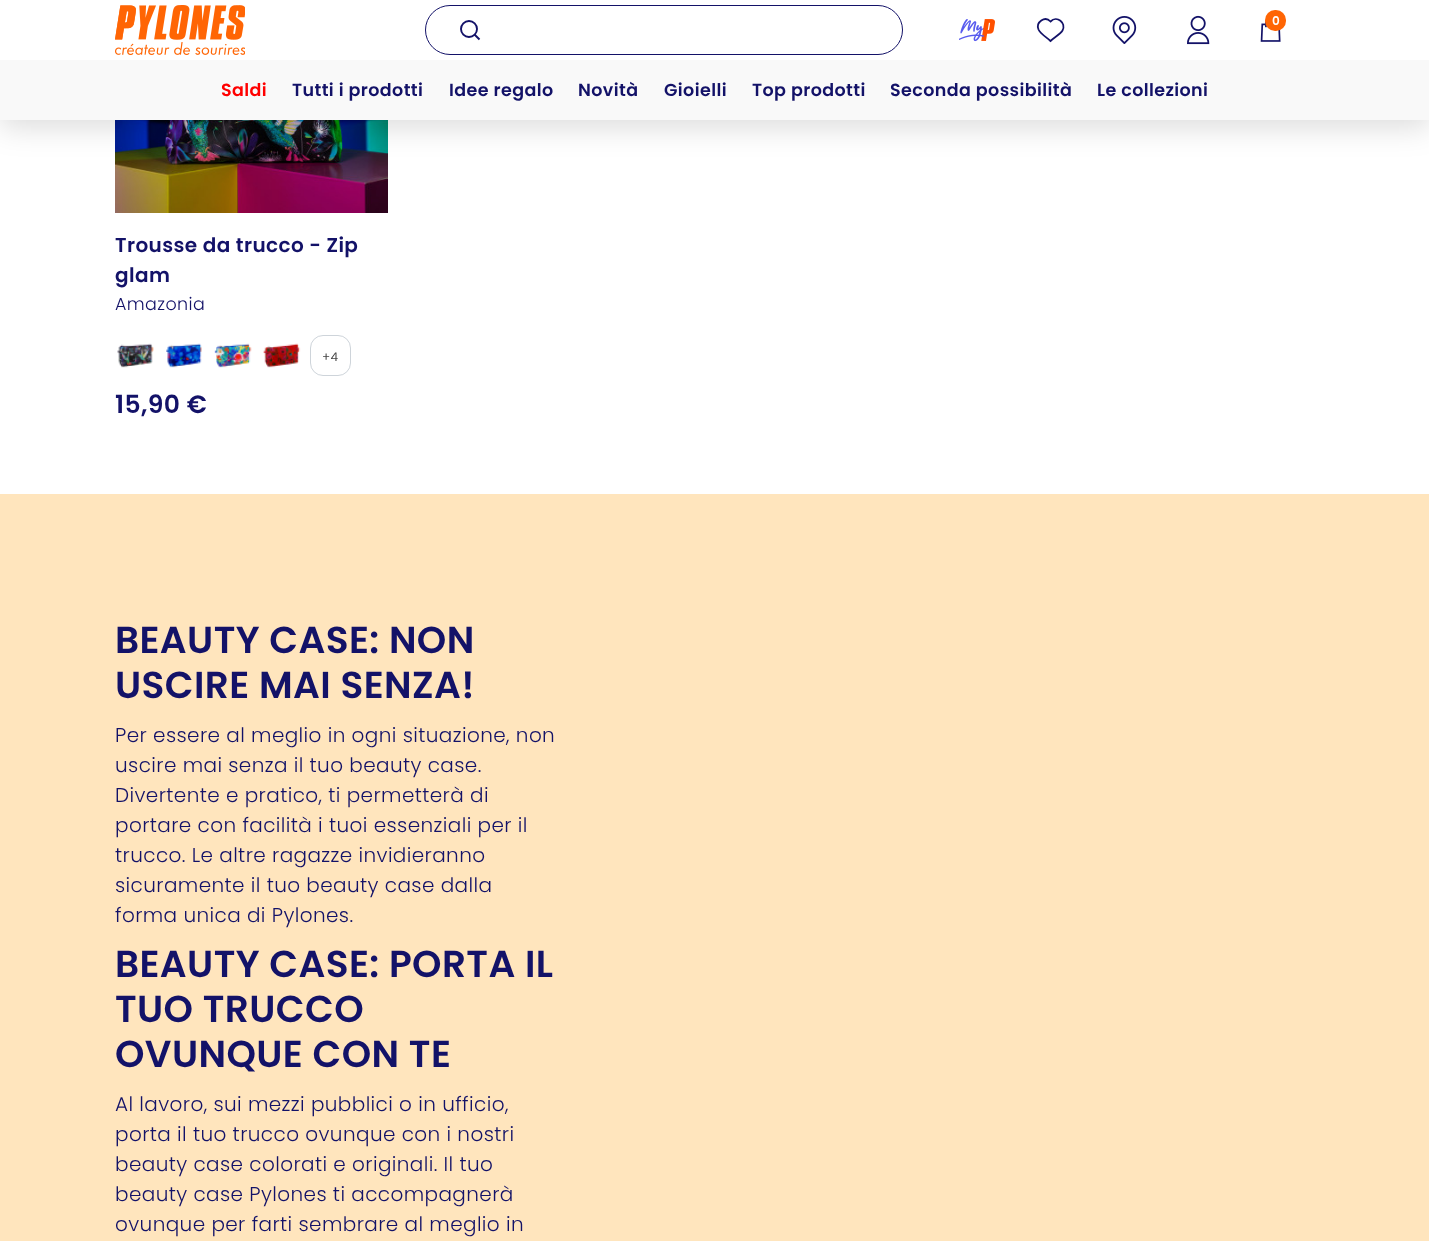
<!DOCTYPE html>
<meta charset="utf-8">
<style>body { margin: 0 } canvas { display: block }</style>
<canvas id="canvas" width="1429" height="1241"></canvas>
<img id="img1" src="img_06.png" hidden>
<img id="img2" src="img_01.png" hidden>
<img id="img3" src="img_02.png" hidden>
<img id="img4" src="img_03.png" hidden>
<img id="img5" src="img_04.png" hidden>
<img id="img6" src="img_05.png" hidden>
<img id="img7" src="img_07.png" hidden>
<img id="img8" src="img_08.png" hidden>
<img id="img9" src="img_09.png" hidden>
<img id="img10" src="img_10.png" hidden>
<script>
window.onload = function () {
	const canvas = document.getElementById("canvas");
	const ctx = canvas.getContext("2d");
	ctx.miterLimit = 4;
	ctx.fontKerning = "normal";
	function txt(s, x, y) {
		ctx.fillText(s, x, y);
	}
	function fill(x, y, w, h) {
		ctx.fillRect(x, y, w, h);
	}
	function round(x, y, w, h, r) {
		ctx.beginPath();
		ctx.roundRect(x, y, w, h, r);
		ctx.fill();
	}
	function img(id, x, y, w, h) {
		ctx.drawImage(document.getElementById(id), x, y, w, h);
	}

	ctx.fillStyle = "#FFFFFF";
	fill(0, 0, 1429, 1241);
	img("img1", 115, 120, 273, 93);
	ctx.fillStyle = "rgba(0, 0, 0, 0.15)";
	ctx.filter = "blur(15.5px)";
	ctx.beginPath();
	ctx.rect(0, 6, 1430, 120);
	ctx.fill();
	ctx.filter = "none";
	ctx.fillStyle = "#FFFFFF";
	fill(0, 0, 1429, 60);
	img("img2", 115, 5, 130, 50);
	ctx.beginPath();
	ctx.roundRect(425.5, 5.5, 477, 49, 24.5);
	ctx.strokeStyle = "#131268";
	ctx.stroke();
	ctx.beginPath();
	ctx.arc(469, 29, 8, 0, Math.PI * 2);
	ctx.lineWidth = 1.9;
	ctx.stroke();
	ctx.beginPath();
	ctx.moveTo(474.5, 34.5);
	ctx.lineTo(479.5, 39.5);
	ctx.stroke();
	img("img3", 959, 19, 36, 23);
	ctx.beginPath();
	ctx.moveTo(1050.5, 41);
	ctx.bezierCurveTo(1054, 37.5, 1060, 34.5, 1062.5, 30.5);
	ctx.bezierCurveTo(1066.5, 23, 1057, 15, 1050.5, 21.5);
	ctx.bezierCurveTo(1045, 15.5, 1035.5, 22, 1038.5, 29.5);
	ctx.bezierCurveTo(1040.5, 34, 1047, 37.5, 1050.5, 41);
	ctx.closePath();
	ctx.lineWidth = 1.8;
	ctx.stroke();
	img("img4", 1112, 16, 25, 28);
	img("img5", 1187, 15, 23, 30);
	img("img6", 1260, 21, 21, 21);
	ctx.fillStyle = "#FF6504";
	round(1265, 10, 21, 21, 10);
	ctx.fillStyle = "#F9F9F9";
	fill(0, 60, 1429, 60);
	img("img7", 117, 343, 37, 25);
	img("img8", 166, 343, 36, 25);
	img("img9", 214, 343, 38, 25);
	img("img10", 263, 343, 38, 25);
	ctx.beginPath();
	ctx.roundRect(310.5, 335.5, 40, 40, 12.5);
	ctx.strokeStyle = "#CED4DA";
	ctx.lineWidth = 1;
	ctx.stroke();
	ctx.fillStyle = "#FFE5BD";
	fill(0, 494, 1429, 747);
	ctx.letterSpacing = "0.4px";
	ctx.font = "600 12px Poppins";
	ctx.fillStyle = "#FFFFFF";
	txt("0", 1272, 25);
	ctx.font = "600 17.5px Poppins";
	ctx.fillStyle = "#FF0000";
	txt("Saldi", 221, 96);
	ctx.fillStyle = "#131268";
	txt("Tutti i prodotti", 292, 96);
	txt("Idee regalo", 449, 96);
	txt("Novità", 578, 96);
	txt("Gioielli", 664, 96);
	txt("Top prodotti", 752, 96);
	txt("Seconda possibilità", 890, 96);
	txt("Le collezioni", 1097, 96);
	ctx.font = "600 20px Poppins";
	txt("Trousse da trucco - Zip", 115, 252);
	txt("glam", 115, 282);
	ctx.font = "300 17.5px Poppins";
	txt("Amazonia", 115, 310);
	ctx.font = "12px Poppins";
	ctx.fillStyle = "#444444";
	txt("+4", 322, 361);
	ctx.font = "600 25px Poppins";
	ctx.fillStyle = "#131268";
	txt("15,90 €", 115, 413);
	ctx.font = "600 37.5px Poppins";
	txt("BEAUTY CASE: NON", 115, 653);
	txt("USCIRE MAI SENZA!", 115, 698);
	ctx.font = "300 20px Poppins";
	txt("Per essere al meglio in ogni situazione, non", 115, 742);
	txt("uscire mai senza il tuo beauty case.", 115, 772);
	txt("Divertente e pratico, ti permetterà di", 115, 802);
	txt("portare con facilità i tuoi essenziali per il", 115, 832);
	txt("trucco. Le altre ragazze invidieranno", 115, 862);
	txt("sicuramente il tuo beauty case dalla", 115, 892);
	txt("forma unica di Pylones.", 115, 922);
	ctx.font = "600 37.5px Poppins";
	txt("BEAUTY CASE: PORTA IL", 115, 977);
	txt("TUO TRUCCO", 115, 1022);
	txt("OVUNQUE CON TE", 115, 1067);
	ctx.font = "300 20px Poppins";
	txt("Al lavoro, sui mezzi pubblici o in ufficio,", 115, 1111);
	txt("porta il tuo trucco ovunque con i nostri", 115, 1141);
	txt("beauty case colorati e originali. Il tuo", 115, 1171);
	txt("beauty case Pylones ti accompagnerà", 115, 1201);
	txt("ovunque per farti sembrare al meglio in", 115, 1231);
};
</script>
